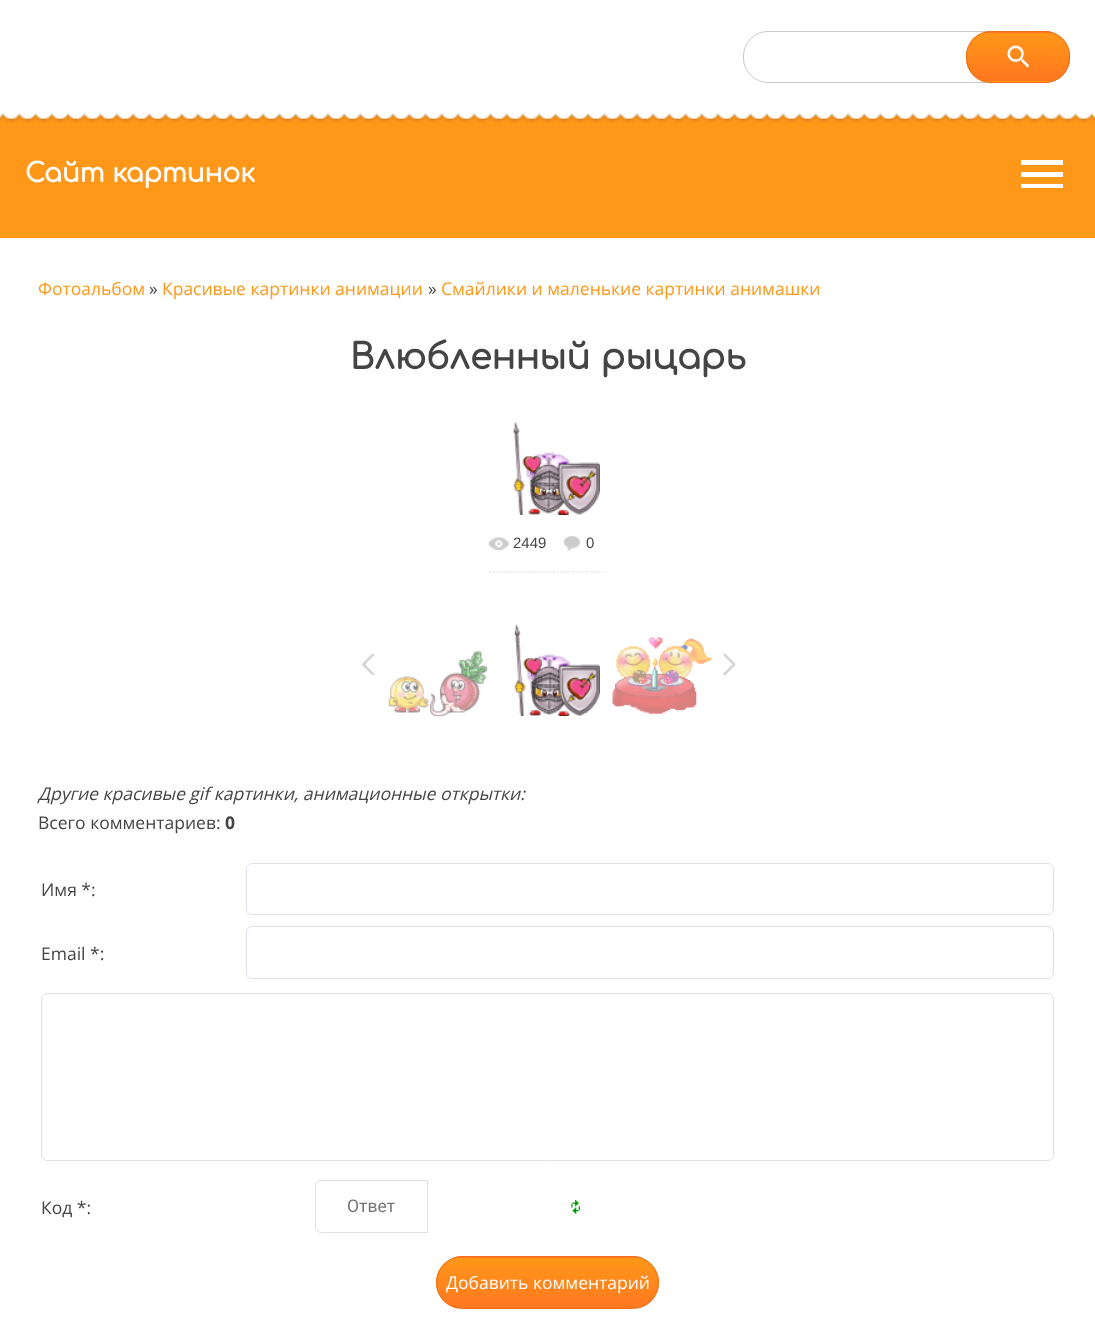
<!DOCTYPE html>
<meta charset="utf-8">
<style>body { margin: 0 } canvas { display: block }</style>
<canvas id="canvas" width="1095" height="1321"></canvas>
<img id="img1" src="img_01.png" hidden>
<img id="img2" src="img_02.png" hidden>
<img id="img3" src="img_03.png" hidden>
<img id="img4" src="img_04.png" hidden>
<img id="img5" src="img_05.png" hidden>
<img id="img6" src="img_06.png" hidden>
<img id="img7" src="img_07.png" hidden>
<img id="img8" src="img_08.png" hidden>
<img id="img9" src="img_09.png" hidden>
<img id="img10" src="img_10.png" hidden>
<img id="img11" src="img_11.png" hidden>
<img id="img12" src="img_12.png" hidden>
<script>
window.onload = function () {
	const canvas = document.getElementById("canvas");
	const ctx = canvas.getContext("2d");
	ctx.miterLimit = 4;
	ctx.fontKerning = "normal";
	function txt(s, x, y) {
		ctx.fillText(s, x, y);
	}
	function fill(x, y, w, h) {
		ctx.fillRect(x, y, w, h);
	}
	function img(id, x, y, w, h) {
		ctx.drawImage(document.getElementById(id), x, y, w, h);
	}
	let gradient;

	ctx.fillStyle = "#FFFFFF";
	fill(0, 0, 1095, 1321);
	ctx.fillStyle = "#FF9818";
	fill(0, 113, 1095, 125);
	img("img1", 0, 113, 1095, 10);
	ctx.beginPath();
	ctx.roundRect(743.5, 31.5, 326, 51, 24.5);
	ctx.strokeStyle = "#CACACA";
	ctx.stroke();
	ctx.save();
	ctx.beginPath();
	ctx.roundRect(966, 31, 104, 52, 25);
	ctx.clip();
	gradient = ctx.createLinearGradient(1018, 32, 1018, -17);
	gradient.addColorStop(0, "#FF7720");
	gradient.addColorStop(1, "#FF9818");
	ctx.fillStyle = gradient;
	fill(981, 31, 74, 2);
	gradient = ctx.createLinearGradient(1018, 81, 1018, 32);
	gradient.addColorStop(0, "#FF7720");
	gradient.addColorStop(1, "#FF9818");
	ctx.fillStyle = gradient;
	fill(966, 33, 104, 48);
	gradient = ctx.createLinearGradient(1018, 129, 1018, 81);
	gradient.addColorStop(0, "#FF7720");
	gradient.addColorStop(1, "#FF9818");
	ctx.fillStyle = gradient;
	fill(981, 81, 74, 2);
	ctx.restore();
	ctx.beginPath();
	ctx.roundRect(966.5, 31.5, 103, 51, 24.5);
	ctx.strokeStyle = "#EF6E19";
	ctx.stroke();
	img("img2", 1007, 45, 23, 23);
	ctx.fillStyle = "#FFFFFF";
	ctx.beginPath();
	ctx.moveTo(1021, 160);
	ctx.lineTo(1063, 160);
	ctx.lineTo(1063, 165);
	ctx.lineTo(1021, 165);
	ctx.closePath();
	ctx.moveTo(1021, 177);
	ctx.lineTo(1021, 172);
	ctx.lineTo(1063, 172);
	ctx.lineTo(1063, 177);
	ctx.closePath();
	ctx.moveTo(1021, 188);
	ctx.lineTo(1021, 184);
	ctx.lineTo(1063, 184);
	ctx.lineTo(1063, 188);
	ctx.closePath();
	ctx.fill();
	img("img3", 513, 422, 87, 93);
	img("img4", 488, 537, 21, 13);
	img("img5", 563, 536, 17, 15);
	img("img6", 489, 571, 118, 2);
	img("img7", 361, 653, 14, 23);
	img("img8", 388, 651, 100, 65);
	img("img9", 514, 624, 86, 92);
	img("img10", 612, 637, 101, 77);
	img("img11", 722, 653, 14, 23);
	ctx.beginPath();
	ctx.roundRect(246.5, 863.5, 807, 51, 5.5);
	ctx.strokeStyle = "#DFDFED";
	ctx.stroke();
	ctx.beginPath();
	ctx.roundRect(246.5, 926.5, 807, 52, 5.5);
	ctx.stroke();
	ctx.beginPath();
	ctx.roundRect(41.5, 993.5, 1012, 167, 5.5);
	ctx.stroke();
	ctx.beginPath();
	ctx.roundRect(315.5, 1180.5, 112, 52, [5.5, 0, 0, 5.5]);
	ctx.stroke();
	img("img12", 571, 1200, 10, 14);
	ctx.save();
	ctx.beginPath();
	ctx.roundRect(436, 1256, 223, 53, 26.5);
	ctx.clip();
	gradient = ctx.createLinearGradient(548, 1258, 548, 1208);
	gradient.addColorStop(0, "#FF7720");
	gradient.addColorStop(1, "#FF9818");
	ctx.fillStyle = gradient;
	fill(452, 1256, 191, 2);
	gradient = ctx.createLinearGradient(548, 1308, 548, 1258);
	gradient.addColorStop(0, "#FF7720");
	gradient.addColorStop(1, "#FF9818");
	ctx.fillStyle = gradient;
	fill(436, 1258, 223, 50);
	ctx.restore();
	ctx.beginPath();
	ctx.roundRect(436.5, 1256.5, 222, 52, 26);
	ctx.strokeStyle = "#EF6E19";
	ctx.stroke();
	ctx.font = "bold 26.25px Comfortaa";
	txt("Сайт картинок", 25, 182);
	ctx.font = "17.5px Open Sans";
	ctx.fillStyle = "#FF9818";
	txt("Фотоальбом", 38, 295);
	ctx.fillStyle = "#444444";
	txt("»", 149, 295);
	ctx.fillStyle = "#FF9818";
	txt("Красивые картинки анимации", 162, 295);
	ctx.fillStyle = "#444444";
	txt("»", 428, 295);
	ctx.fillStyle = "#FF9818";
	txt("Смайлики и маленькие картинки анимашки", 441, 295);
	ctx.font = "bold 35px Comfortaa";
	ctx.fillStyle = "#444444";
	txt("Влюбленный рыцарь", 350, 369);
	ctx.font = "15px Liberation Sans";
	txt("2449", 513, 548);
	txt("0", 586, 548);
	ctx.font = "italic 17.5px Open Sans";
	txt("Другие красивые gif картинки, анимационные открытки:", 38, 800);
	ctx.font = "17.5px Open Sans";
	txt("Всего комментариев:", 38, 829);
	ctx.font = "bold 17.5px Open Sans";
	txt("0", 225, 829);
	ctx.font = "17.5px Open Sans";
	txt("Имя *:", 41, 896);
	txt("Email *:", 41, 960);
	txt("Код *:", 41, 1214);
	ctx.font = "17.5px Roboto";
	ctx.fillStyle = "#757575";
	txt("Ответ", 347, 1212);
	ctx.font = "17.5px Open Sans";
	ctx.fillStyle = "#FFFFFF";
	txt("Добавить комментарий", 446, 1289);
};
</script>
